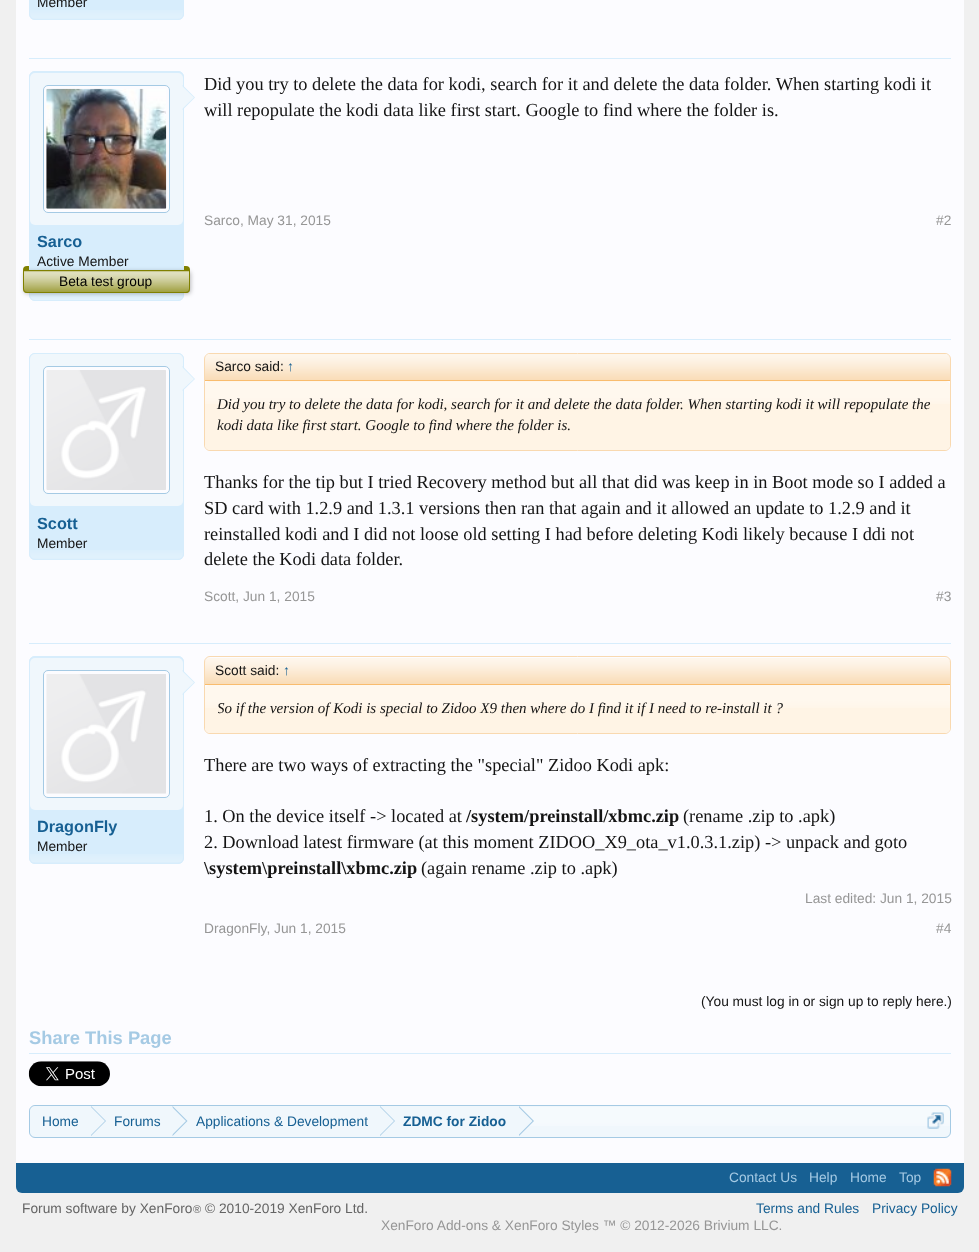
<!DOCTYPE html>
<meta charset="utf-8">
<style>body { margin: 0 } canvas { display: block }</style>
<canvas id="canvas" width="979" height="1252"></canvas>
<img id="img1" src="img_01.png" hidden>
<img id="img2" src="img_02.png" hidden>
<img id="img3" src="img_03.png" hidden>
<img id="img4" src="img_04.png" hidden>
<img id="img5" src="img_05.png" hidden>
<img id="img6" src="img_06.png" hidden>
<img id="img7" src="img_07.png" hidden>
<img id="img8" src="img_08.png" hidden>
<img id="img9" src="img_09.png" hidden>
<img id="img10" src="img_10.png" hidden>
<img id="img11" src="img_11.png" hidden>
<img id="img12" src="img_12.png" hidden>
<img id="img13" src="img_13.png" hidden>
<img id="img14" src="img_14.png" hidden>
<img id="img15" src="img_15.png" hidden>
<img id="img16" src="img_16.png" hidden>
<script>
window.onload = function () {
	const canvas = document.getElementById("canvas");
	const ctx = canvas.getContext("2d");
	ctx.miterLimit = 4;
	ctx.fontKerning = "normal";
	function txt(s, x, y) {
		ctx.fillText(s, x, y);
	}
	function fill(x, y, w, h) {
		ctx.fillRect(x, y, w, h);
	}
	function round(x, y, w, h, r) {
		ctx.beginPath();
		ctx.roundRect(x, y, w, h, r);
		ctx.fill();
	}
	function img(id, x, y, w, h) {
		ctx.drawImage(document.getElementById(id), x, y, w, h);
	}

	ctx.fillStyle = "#F0F0F0";
	fill(0, 0, 979, 1252);
	ctx.fillStyle = "#FCFCFF";
	fill(16, 0, 948, 1163);
	ctx.fillStyle = "#D7EDFC";
	round(29, -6, 155, 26, 6);
	img("img1", 29, 10, 154, 9);
	ctx.beginPath();
	ctx.roundRect(29.5, -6.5, 154, 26, 5.5);
	ctx.strokeStyle = "#D7EDFC";
	ctx.stroke();
	fill(29, 58, 922, 1);
	round(29, 71, 155, 230, 6);
	img("img2", 29, 293, 154, 7);
	ctx.beginPath();
	ctx.roundRect(29.5, 71.5, 154, 229, 5.5);
	ctx.stroke();
	ctx.fillStyle = "#F0F7FC";
	round(30, 73, 153, 152, 5);
	ctx.fillStyle = "#FCFCFF";
	ctx.beginPath();
	ctx.roundRect(43.5, 85.5, 126, 127, 4.5);
	ctx.fill();
	ctx.strokeStyle = "#A5CAE4";
	ctx.stroke();
	img("img3", 46, 88, 121, 121);
	ctx.fillStyle = "#D7EDFC";
	ctx.beginPath();
	ctx.moveTo(182.5, 110);
	ctx.lineTo(182.5, 85);
	ctx.lineTo(195, 97.5);
	ctx.closePath();
	ctx.fill();
	ctx.fillStyle = "#F0F7FC";
	ctx.beginPath();
	ctx.moveTo(181, 110);
	ctx.lineTo(181, 85);
	ctx.lineTo(194, 97.5);
	ctx.closePath();
	ctx.fill();
	ctx.fillStyle = "rgba(0, 0, 0, 0.25)";
	ctx.filter = "blur(2px)";
	ctx.beginPath();
	ctx.roundRect(24, 271, 167, 23, 4);
	ctx.fill();
	ctx.filter = "none";
	ctx.fillStyle = "#808000";
	ctx.beginPath();
	ctx.roundRect(23, 270, 167, 23, [0, 0, 4, 4]);
	ctx.fill();
	img("img4", 23, 271, 167, 22);
	ctx.beginPath();
	ctx.roundRect(23.5, 270.5, 166, 22, [0, 0, 3.5, 3.5]);
	ctx.strokeStyle = "#808000";
	ctx.stroke();
	ctx.beginPath();
	ctx.roundRect(23, 266, 6, 5, [4, 0, 0, 0]);
	ctx.fill();
	ctx.beginPath();
	ctx.roundRect(184, 266, 6, 5, [0, 4, 0, 0]);
	ctx.fill();
	ctx.fillStyle = "#D7EDFC";
	fill(29, 339, 922, 1);
	round(29, 353, 155, 207, 6);
	img("img5", 29, 550, 154, 9);
	ctx.beginPath();
	ctx.roundRect(29.5, 353.5, 154, 206, 5.5);
	ctx.strokeStyle = "#D7EDFC";
	ctx.stroke();
	ctx.fillStyle = "#F0F7FC";
	round(30, 354, 153, 152, 5);
	ctx.fillStyle = "#FCFCFF";
	ctx.beginPath();
	ctx.roundRect(43.5, 366.5, 126, 127, 4.5);
	ctx.fill();
	ctx.strokeStyle = "#A5CAE4";
	ctx.stroke();
	img("img6", 46, 370, 120, 120);
	ctx.fillStyle = "#D7EDFC";
	ctx.beginPath();
	ctx.moveTo(182.5, 391);
	ctx.lineTo(182.5, 366);
	ctx.lineTo(195, 379);
	ctx.closePath();
	ctx.fill();
	ctx.fillStyle = "#F0F7FC";
	ctx.beginPath();
	ctx.moveTo(181, 391);
	ctx.lineTo(181, 366);
	ctx.lineTo(194, 379);
	ctx.closePath();
	ctx.fill();
	ctx.beginPath();
	ctx.roundRect(204.5, 353.5, 746, 97, 5.5);
	ctx.strokeStyle = "#F9D9B0";
	ctx.stroke();
	ctx.fillStyle = "#F9D9B0";
	ctx.beginPath();
	ctx.roundRect(205, 354, 745, 27, [5, 5, 0, 0]);
	ctx.fill();
	img("img7", 205, 354, 745, 26);
	ctx.fillStyle = "#F9BC6D";
	fill(205, 380, 745, 1);
	ctx.fillStyle = "#FFF4E5";
	round(205, 381, 745, 69, 5);
	img("img8", 205, 381, 745, 23);
	ctx.fillStyle = "#D7EDFC";
	fill(29, 643, 922, 1);
	round(29, 656, 155, 208, 6);
	img("img9", 29, 854, 155, 9);
	ctx.beginPath();
	ctx.roundRect(29.5, 656.5, 154, 207, 5.5);
	ctx.strokeStyle = "#D7EDFC";
	ctx.stroke();
	ctx.fillStyle = "#F0F7FC";
	round(30, 658, 153, 152, 5);
	ctx.fillStyle = "#FCFCFF";
	ctx.beginPath();
	ctx.roundRect(43.5, 670.5, 126, 127, 4.5);
	ctx.fill();
	ctx.strokeStyle = "#A5CAE4";
	ctx.stroke();
	img("img10", 46, 674, 120, 120);
	ctx.fillStyle = "#D7EDFC";
	ctx.beginPath();
	ctx.moveTo(182.5, 695);
	ctx.lineTo(182.5, 670);
	ctx.lineTo(195, 682.5);
	ctx.closePath();
	ctx.fill();
	ctx.fillStyle = "#F0F7FC";
	ctx.beginPath();
	ctx.moveTo(181, 695);
	ctx.lineTo(181, 670);
	ctx.lineTo(194, 682.5);
	ctx.closePath();
	ctx.fill();
	ctx.beginPath();
	ctx.roundRect(204.5, 656.5, 746, 77, 5.5);
	ctx.strokeStyle = "#F9D9B0";
	ctx.stroke();
	ctx.fillStyle = "#F9D9B0";
	ctx.beginPath();
	ctx.roundRect(205, 658, 745, 27, [5, 5, 0, 0]);
	ctx.fill();
	img("img11", 205, 658, 745, 26);
	ctx.fillStyle = "#F9BC6D";
	fill(205, 684, 745, 1);
	ctx.fillStyle = "#FFF4E5";
	round(205, 685, 745, 48, 5);
	img("img12", 205, 685, 745, 23);
	ctx.fillStyle = "#D7EDFC";
	fill(29, 1053, 922, 1);
	img("img13", 28, 1061, 82, 26);
	ctx.fillStyle = "#F0F7FC";
	round(29, 1105, 922, 33, 6);
	img("img14", 29, 1107, 922, 19);
	ctx.beginPath();
	ctx.roundRect(29.5, 1105.5, 921, 32, 5.5);
	ctx.strokeStyle = "#A5CAE4";
	ctx.stroke();
	ctx.save();
	ctx.beginPath();
	ctx.roundRect(30, 1106, 920, 30, 5);
	ctx.clip();
	ctx.beginPath();
	ctx.roundRect(30, 1106, 61, 32, [6, 0, 0, 6]);
	ctx.fill();
	ctx.restore();
	fill(91, 1107, 428, 19);
	ctx.fillStyle = "#A5CAE4";
	ctx.beginPath();
	ctx.moveTo(91, 1136);
	ctx.lineTo(91, 1106);
	ctx.lineTo(106, 1121);
	ctx.closePath();
	ctx.fill();
	ctx.fillStyle = "#F0F7FC";
	ctx.beginPath();
	ctx.moveTo(90, 1136);
	ctx.lineTo(90, 1106);
	ctx.lineTo(105, 1121);
	ctx.closePath();
	ctx.fill();
	ctx.fillStyle = "#A5CAE4";
	ctx.beginPath();
	ctx.moveTo(172.5, 1136);
	ctx.lineTo(172.5, 1106);
	ctx.lineTo(187.5, 1121);
	ctx.closePath();
	ctx.fill();
	ctx.fillStyle = "#F0F7FC";
	ctx.beginPath();
	ctx.moveTo(171, 1136);
	ctx.lineTo(171, 1106);
	ctx.lineTo(186, 1121);
	ctx.closePath();
	ctx.fill();
	ctx.fillStyle = "#A5CAE4";
	ctx.beginPath();
	ctx.moveTo(380, 1136);
	ctx.lineTo(380, 1106);
	ctx.lineTo(395, 1121);
	ctx.closePath();
	ctx.fill();
	ctx.fillStyle = "#F0F7FC";
	ctx.beginPath();
	ctx.moveTo(379, 1136);
	ctx.lineTo(379, 1106);
	ctx.lineTo(394, 1121);
	ctx.closePath();
	ctx.fill();
	ctx.fillStyle = "#A5CAE4";
	ctx.beginPath();
	ctx.moveTo(519, 1136);
	ctx.lineTo(519, 1106);
	ctx.lineTo(534, 1121);
	ctx.closePath();
	ctx.fill();
	ctx.fillStyle = "#F0F7FC";
	ctx.beginPath();
	ctx.moveTo(517.5, 1136);
	ctx.lineTo(517.5, 1106);
	ctx.lineTo(532.5, 1121);
	ctx.closePath();
	ctx.fill();
	img("img15", 927, 1112, 17, 17);
	ctx.fillStyle = "#176093";
	ctx.beginPath();
	ctx.roundRect(16, 1163, 948, 30, [0, 0, 6, 6]);
	ctx.fill();
	img("img16", 933, 1168, 19, 19);
	ctx.font = "13.75px Liberation Sans";
	ctx.fillStyle = "#141414";
	txt("Member", 37, 7);
	ctx.font = "18.35px Liberation Serif";
	txt("Did you try to delete the data for kodi, search for it and delete the data folder. When starting kodi it", 204, 90);
	txt("will repopulate the kodi data like first start. Google to find where the folder is.", 204, 116);
	ctx.font = "13.75px Liberation Sans";
	ctx.fillStyle = "#969696";
	txt("Sarco, May 31, 2015", 204, 225);
	txt("#2", 936, 225);
	ctx.font = "bold 16.25px Liberation Sans";
	ctx.fillStyle = "#176093";
	txt("Sarco", 37, 247);
	ctx.font = "13.75px Liberation Sans";
	ctx.fillStyle = "#141414";
	txt("Active Member", 37, 266);
	ctx.fillStyle = "#000000";
	txt("Beta test group", 59, 286);
	ctx.font = "bold 16.25px Liberation Sans";
	ctx.fillStyle = "#176093";
	txt("Scott", 37, 529);
	ctx.font = "13.75px Liberation Sans";
	ctx.fillStyle = "#141414";
	txt("Member", 37, 548);
	txt("Sarco said:", 215, 371);
	ctx.fillStyle = "#176093";
	txt("↑", 287, 371);
	ctx.font = "italic 15px Liberation Serif";
	ctx.fillStyle = "#141414";
	txt("Did you try to delete the data for kodi, search for it and delete the data folder. When starting kodi it will repopulate the", 217, 409);
	txt("kodi data like first start. Google to find where the folder is.", 217, 430);
	ctx.save();
	ctx.beginPath();
	ctx.rect(204, 353, 747, 222);
	ctx.clip();
	ctx.font = "18.35px Liberation Serif";
	txt("Thanks for the tip but I tried Recovery method but all that did was keep in in Boot mode so I added a", 204, 488);
	ctx.restore();
	ctx.font = "18.35px Liberation Serif";
	txt("SD card with 1.2.9 and 1.3.1 versions then ran that again and it allowed an update to 1.2.9 and it", 204, 514);
	txt("reinstalled kodi and I did not loose old setting I had before deleting Kodi likely because I ddi not", 204, 540);
	txt("delete the Kodi data folder.", 204, 565);
	ctx.font = "13.75px Liberation Sans";
	ctx.fillStyle = "#969696";
	txt("Scott, Jun 1, 2015", 204, 601);
	txt("#3", 936, 601);
	ctx.font = "bold 16.25px Liberation Sans";
	ctx.fillStyle = "#176093";
	txt("DragonFly", 37, 832);
	ctx.font = "13.75px Liberation Sans";
	ctx.fillStyle = "#141414";
	txt("Member", 37, 851);
	txt("Scott said:", 215, 675);
	ctx.fillStyle = "#176093";
	txt("↑", 283, 675);
	ctx.save();
	ctx.beginPath();
	ctx.rect(218, 698, 720, 22);
	ctx.clip();
	ctx.font = "italic 15px Liberation Serif";
	ctx.fillStyle = "#141414";
	txt("So if the version of Kodi is special to Zidoo X9 then where do I find it if I need to re-install it ?", 217, 713);
	ctx.restore();
	ctx.save();
	ctx.beginPath();
	ctx.rect(204, 656, 747, 227);
	ctx.clip();
	ctx.font = "18.35px Liberation Serif";
	ctx.fillStyle = "#141414";
	txt("There are two ways of extracting the \"special\" Zidoo Kodi apk:", 204, 771);
	ctx.restore();
	ctx.font = "18.35px Liberation Serif";
	ctx.fillStyle = "#141414";
	txt("1. On the device itself -> located at", 204, 822);
	ctx.font = "bold 18.35px Liberation Serif";
	txt("/system/preinstall/xbmc.zip", 466, 822);
	ctx.font = "18.35px Liberation Serif";
	txt("(rename .zip to .apk)", 683, 822);
	txt("2. Download latest firmware (at this moment ZIDOO_X9_ota_v1.0.3.1.zip) -> unpack and goto", 204, 848);
	ctx.font = "bold 18.35px Liberation Serif";
	txt("\\system\\preinstall\\xbmc.zip", 204, 874);
	ctx.font = "18.35px Liberation Serif";
	txt("(again rename .zip to .apk)", 421, 874);
	ctx.font = "13.75px Liberation Sans";
	ctx.fillStyle = "#969696";
	txt("Last edited: Jun 1, 2015", 805, 903);
	txt("DragonFly, Jun 1, 2015", 204, 933);
	txt("#4", 936, 933);
	ctx.fillStyle = "#141414";
	txt("(You must log in or sign up to reply here.)", 701, 1006);
	ctx.font = "bold 18.35px Liberation Sans";
	ctx.fillStyle = "#A5CAE4";
	txt("Share This Page", 29, 1044);
	ctx.font = "13.75px Liberation Sans";
	ctx.fillStyle = "#176093";
	txt("Home", 42, 1126);
	txt("Forums", 114, 1126);
	txt("Applications & Development", 196, 1126);
	ctx.font = "bold 13.75px Liberation Sans";
	txt("ZDMC for Zidoo", 403, 1126);
	ctx.font = "13.75px Liberation Sans";
	ctx.fillStyle = "#A5CAE4";
	txt("Contact Us", 729, 1182);
	txt("Help", 809, 1182);
	txt("Home", 850, 1182);
	txt("Top", 899, 1182);
	ctx.fillStyle = "#646464";
	txt("Forum software by XenForo", 22, 1213);
	ctx.font = "11px Liberation Sans";
	txt("®", 193, 1213);
	ctx.font = "13.75px Liberation Sans";
	txt("© 2010-2019 XenForo Ltd.", 205, 1213);
	ctx.fillStyle = "#176093";
	txt("Terms and Rules", 756, 1213);
	txt("Privacy Policy", 872, 1213);
	ctx.fillStyle = "#969696";
	txt("XenForo Add-ons & XenForo Styles ™ © 2012-2026 Brivium LLC.", 381, 1230);
};
</script>
